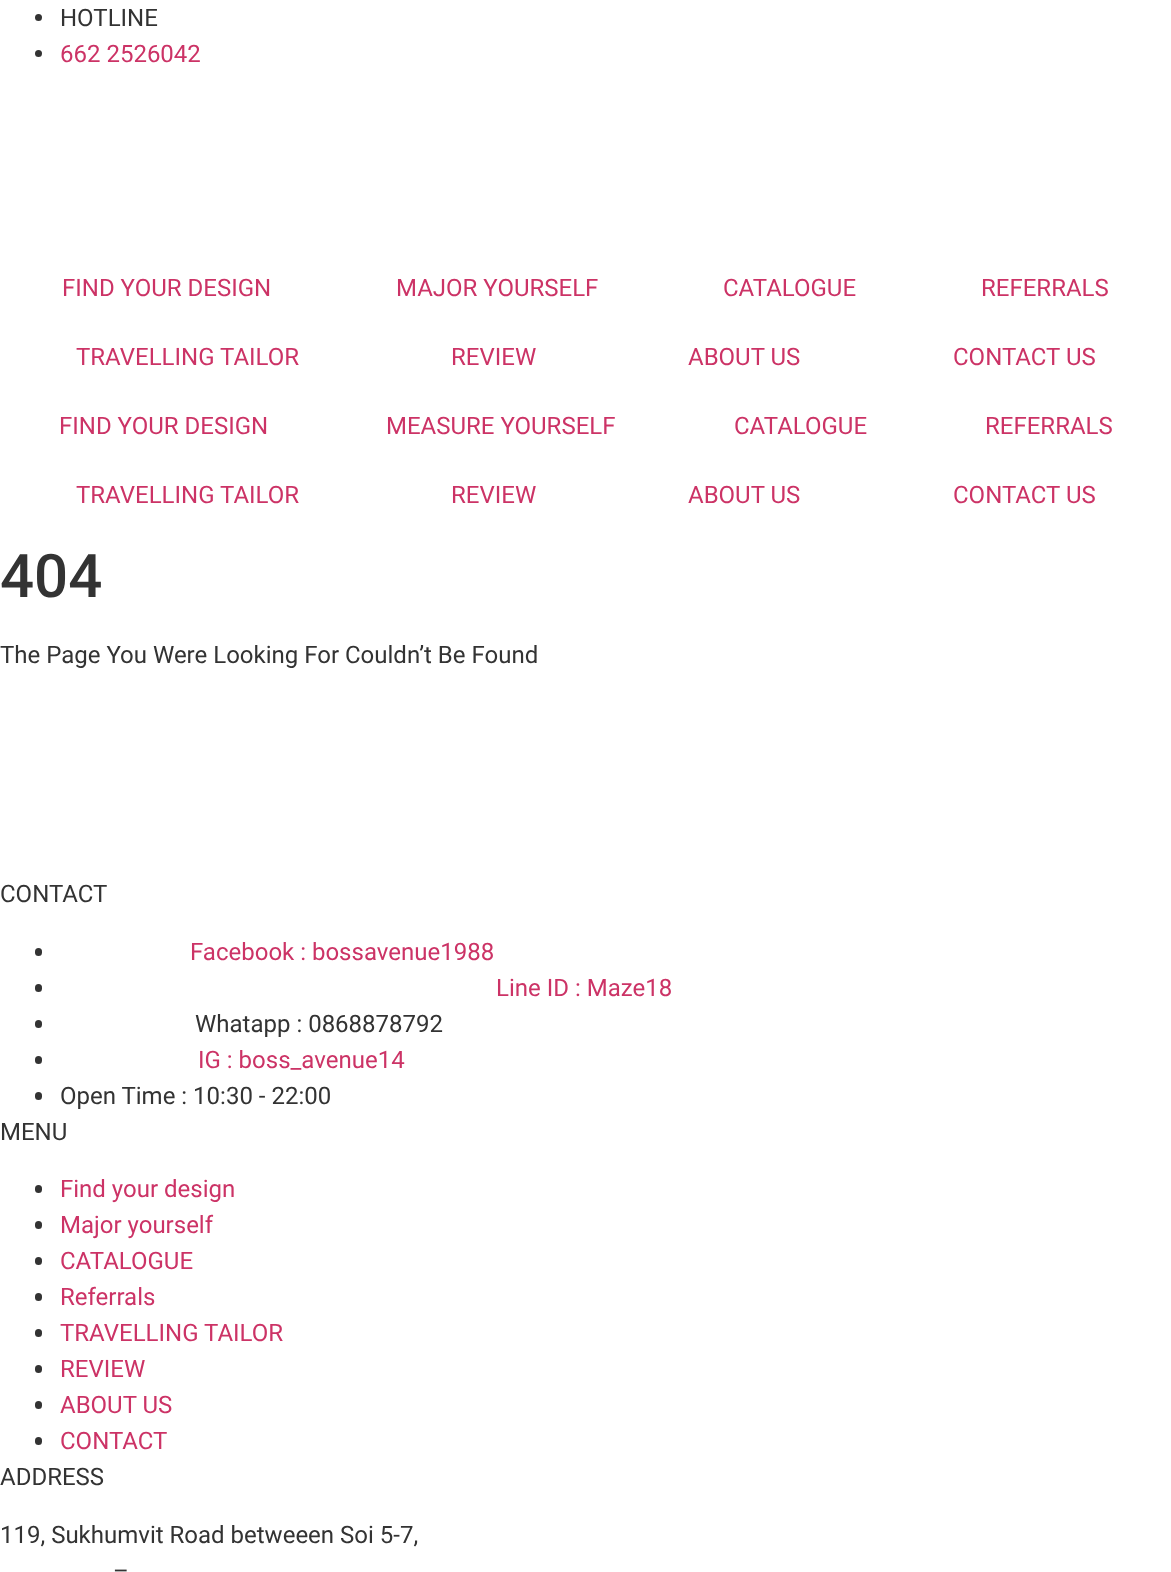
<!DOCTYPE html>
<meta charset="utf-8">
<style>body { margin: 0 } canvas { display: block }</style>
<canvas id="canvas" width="1171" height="1572"></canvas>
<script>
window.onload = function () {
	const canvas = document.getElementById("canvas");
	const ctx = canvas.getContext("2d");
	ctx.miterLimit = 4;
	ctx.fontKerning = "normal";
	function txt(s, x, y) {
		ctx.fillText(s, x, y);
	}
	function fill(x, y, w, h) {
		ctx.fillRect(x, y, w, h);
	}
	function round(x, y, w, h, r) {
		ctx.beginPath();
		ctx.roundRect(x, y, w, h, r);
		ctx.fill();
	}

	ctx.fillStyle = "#FFFFFF";
	fill(0, 0, 1171, 1572);
	ctx.fillStyle = "#333333";
	ctx.beginPath();
	ctx.arc(38.5, 17.5, 3.5, 0, Math.PI * 2);
	ctx.fill();
	ctx.beginPath();
	ctx.arc(38.5, 53.5, 3.5, 0, Math.PI * 2);
	ctx.fill();
	round(35, 948, 7, 8, 3.5);
	round(35, 984, 7, 8, 3.5);
	round(35, 1020, 7, 8, 3.5);
	round(35, 1056, 7, 8, 3.5);
	round(35, 1092, 7, 8, 3.5);
	round(35, 1185, 7, 8, 3.5);
	round(35, 1221, 7, 8, 3.5);
	round(35, 1257, 7, 8, 3.5);
	round(35, 1293, 7, 8, 3.5);
	round(35, 1329, 7, 8, 3.5);
	round(35, 1365, 7, 8, 3.5);
	round(35, 1401, 7, 8, 3.5);
	round(35, 1437, 7, 8, 3.5);
	ctx.font = "24px Roboto";
	txt("HOTLINE", 60, 26);
	ctx.fillStyle = "#CC3366";
	txt("662 2526042", 60, 62);
	txt("FIND YOUR DESIGN", 62, 296);
	txt("MAJOR YOURSELF", 396, 296);
	txt("CATALOGUE", 723, 296);
	txt("REFERRALS", 981, 296);
	txt("TRAVELLING TAILOR", 76, 365);
	txt("REVIEW", 451, 365);
	txt("ABOUT US", 688, 365);
	txt("CONTACT US", 953, 365);
	txt("FIND YOUR DESIGN", 59, 434);
	txt("MEASURE YOURSELF", 386, 434);
	txt("CATALOGUE", 734, 434);
	txt("REFERRALS", 985, 434);
	txt("TRAVELLING TAILOR", 76, 503);
	txt("REVIEW", 451, 503);
	txt("ABOUT US", 688, 503);
	txt("CONTACT US", 953, 503);
	ctx.font = "500 60px Roboto";
	ctx.fillStyle = "#333333";
	txt("404", 0, 597);
	ctx.font = "24px Roboto";
	txt("The Page You Were Looking For Couldn’t Be Found", 0, 663);
	txt("CONTACT", 0, 902);
	ctx.fillStyle = "#CC3366";
	txt("Facebook : bossavenue1988", 190, 960);
	txt("Line ID : Maze18", 496, 996);
	ctx.fillStyle = "#333333";
	txt("Whatapp : 0868878792", 195, 1032);
	ctx.fillStyle = "#CC3366";
	txt("IG : boss_avenue14", 198, 1068);
	ctx.fillStyle = "#333333";
	txt("Open Time : 10:30 - 22:00", 60, 1104);
	txt("MENU", 0, 1140);
	ctx.fillStyle = "#CC3366";
	txt("Find your design", 60, 1197);
	txt("Major yourself", 60, 1233);
	txt("CATALOGUE", 60, 1269);
	txt("Referrals", 60, 1305);
	txt("TRAVELLING TAILOR", 60, 1341);
	txt("REVIEW", 60, 1377);
	txt("ABOUT US", 60, 1413);
	txt("CONTACT", 60, 1449);
	ctx.fillStyle = "#333333";
	txt("ADDRESS", 0, 1485);
	txt("119, Sukhumvit Road betweeen Soi 5-7,", 0, 1543);
	txt("–", 113, 1579);
};
</script>
